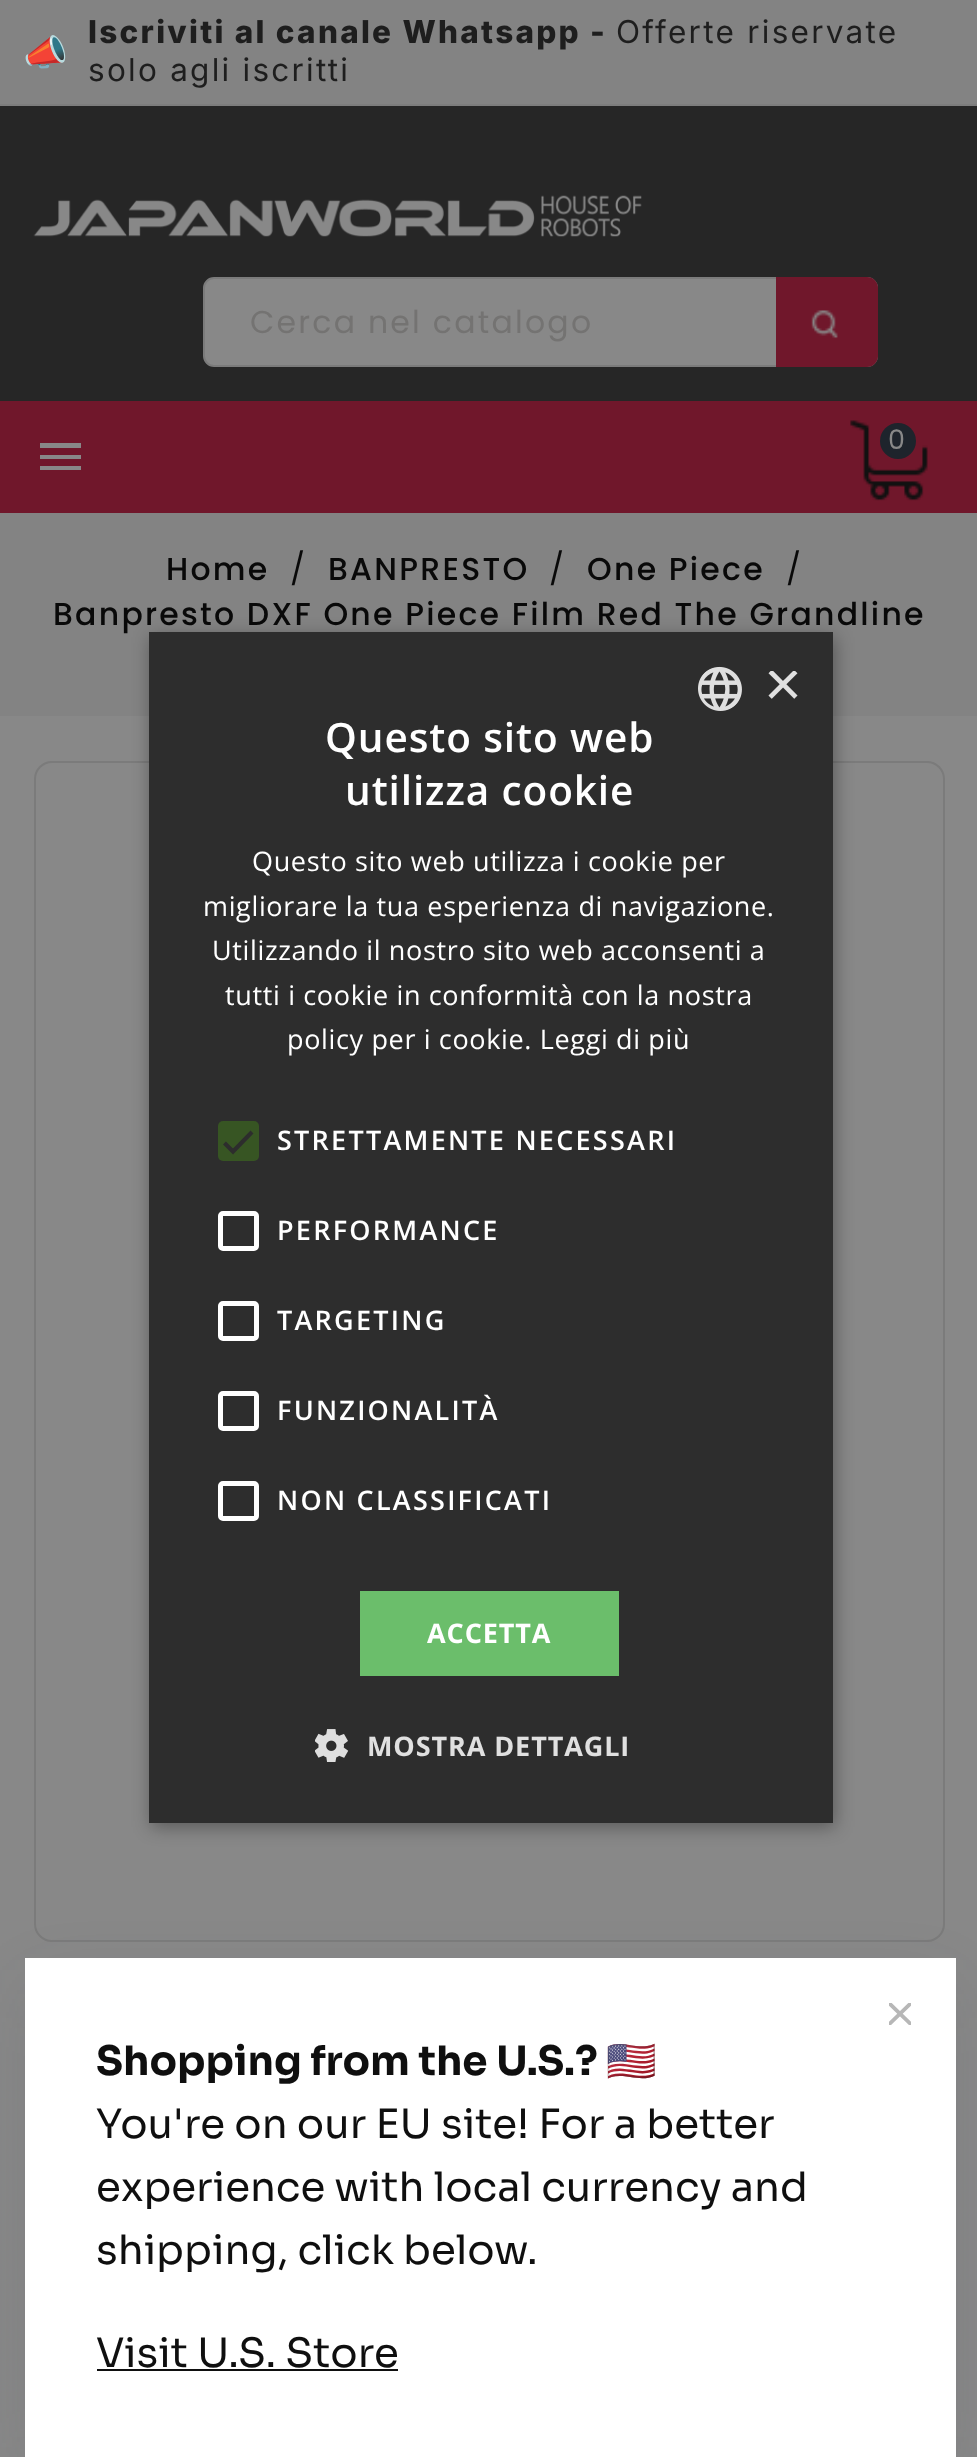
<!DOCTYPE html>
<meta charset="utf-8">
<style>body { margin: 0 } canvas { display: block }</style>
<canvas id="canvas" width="977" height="2457"></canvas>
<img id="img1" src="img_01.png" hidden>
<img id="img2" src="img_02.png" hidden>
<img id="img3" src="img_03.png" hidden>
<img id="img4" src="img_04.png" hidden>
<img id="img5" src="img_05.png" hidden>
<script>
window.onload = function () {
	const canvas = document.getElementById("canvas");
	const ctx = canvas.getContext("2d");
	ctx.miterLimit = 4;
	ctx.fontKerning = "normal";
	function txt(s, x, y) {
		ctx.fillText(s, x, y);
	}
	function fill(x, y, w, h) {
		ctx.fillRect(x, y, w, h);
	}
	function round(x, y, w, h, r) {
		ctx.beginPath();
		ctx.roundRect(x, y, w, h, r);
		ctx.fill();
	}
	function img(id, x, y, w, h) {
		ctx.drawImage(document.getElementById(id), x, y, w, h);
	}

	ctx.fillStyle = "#888888";
	fill(0, 0, 977, 2457);
	ctx.fillStyle = "#838383";
	fill(0, 0, 977, 104);
	ctx.fillStyle = "#7D7D7D";
	fill(0, 104, 977, 2);
	ctx.fillStyle = "#262626";
	fill(0, 106, 977, 295);
	img("img1", 33, 195, 609, 42);
	ctx.fillStyle = "#888888";
	ctx.beginPath();
	ctx.roundRect(204, 278, 673, 88, 10);
	ctx.fill();
	ctx.strokeStyle = "#7B7B7B";
	ctx.lineWidth = 2;
	ctx.stroke();
	ctx.fillStyle = "#70172B";
	ctx.beginPath();
	ctx.roundRect(776, 277, 102, 90, [0, 11, 11, 0]);
	ctx.fill();
	img("img2", 811, 310, 27, 29);
	fill(0, 401, 977, 112);
	img("img3", 850, 420, 78, 81);
	ctx.fillStyle = "#1E242C";
	ctx.beginPath();
	ctx.arc(898, 441, 18, 0, Math.PI * 2);
	ctx.fill();
	ctx.fillStyle = "#888888";
	ctx.beginPath();
	ctx.moveTo(40, 443);
	ctx.lineTo(81, 443);
	ctx.lineTo(81, 448);
	ctx.lineTo(40, 448);
	ctx.closePath();
	ctx.moveTo(40, 459);
	ctx.lineTo(40, 455);
	ctx.lineTo(81, 455);
	ctx.lineTo(81, 459);
	ctx.closePath();
	ctx.moveTo(40, 470);
	ctx.lineTo(40, 466);
	ctx.lineTo(81, 466);
	ctx.lineTo(81, 470);
	ctx.closePath();
	ctx.fill();
	ctx.fillStyle = "#838383";
	fill(0, 513, 977, 203);
	ctx.beginPath();
	ctx.roundRect(35, 762, 909, 1179, 17);
	ctx.stroke();
	ctx.fillStyle = "rgba(0, 0, 0, 0.35)";
	ctx.filter = "blur(9px)";
	ctx.beginPath();
	ctx.rect(151, 637, 684, 1190);
	ctx.fill();
	ctx.filter = "none";
	ctx.fillStyle = "rgba(54, 61, 77, 0.15)";
	ctx.filter = "blur(36px)";
	ctx.beginPath();
	ctx.rect(36, 1994, 909, 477);
	ctx.fill();
	ctx.filter = "none";
	ctx.fillStyle = "#FFFFFF";
	fill(25, 1958, 931, 499);
	ctx.save();
	ctx.beginPath();
	ctx.rect(889, 2003, 22, 22);
	ctx.clip();
	ctx.beginPath();
	ctx.moveTo(890, 2004);
	ctx.lineTo(910, 2023.5);
	ctx.moveTo(910, 2004);
	ctx.lineTo(890, 2023.5);
	ctx.strokeStyle = "#B7B7B7";
	ctx.lineWidth = 3.8;
	ctx.lineCap = "round";
	ctx.lineJoin = "round";
	ctx.stroke();
	ctx.restore();
	ctx.fillStyle = "#0F0F0F";
	fill(97, 2369, 301, 2);
	ctx.letterSpacing = "2.25px";
	ctx.font = "36px Noto Color Emoji";
	ctx.fillStyle = "#1E1E1E";
	txt("📣", 23, 65);
	ctx.font = "800 31.5px Inter";
	txt("Iscriviti al canale Whatsapp -", 88, 43);
	ctx.font = "31.5px Inter";
	txt("Offerte riservate", 616, 43);
	txt("solo agli iscritti", 88, 81);
	ctx.font = "31.5px Poppins";
	ctx.fillStyle = "#747372";
	txt("Cerca nel catalogo", 250, 333);
	ctx.font = "27px Poppins";
	ctx.fillStyle = "#888888";
	txt("0", 888, 449);
	ctx.font = "500 31.5px Poppins";
	ctx.fillStyle = "#090909";
	txt("Home", 166, 580);
	ctx.font = "31.5px Poppins";
	txt("/", 290, 580);
	ctx.font = "500 31.5px Poppins";
	txt("BANPRESTO", 328, 580);
	ctx.font = "31.5px Poppins";
	txt("/", 549, 580);
	ctx.font = "500 31.5px Poppins";
	txt("One Piece", 587, 580);
	ctx.font = "31.5px Poppins";
	txt("/", 786, 580);
	ctx.font = "500 31.5px Poppins";
	txt("Banpresto DXF One Piece Film Red The Grandline", 53, 625);
	ctx.fillStyle = "#2D2D2D";
	fill(149, 632, 684, 1191);
	img("img4", 698, 666, 44, 45);
	ctx.save();
	ctx.beginPath();
	ctx.rect(765, 671, 34, 33);
	ctx.clip();
	ctx.letterSpacing = "0px";
	ctx.font = "65px Liberation Sans";
	ctx.fillStyle = "#E0E0E0";
	txt("×", 764, 706);
	ctx.restore();
	ctx.letterSpacing = "0.9px";
	ctx.font = "600 40.5px Open Sans";
	ctx.fillStyle = "#FFFFFF";
	txt("Questo sito web", 325, 752);
	txt("utilizza cookie", 345, 805);
	ctx.letterSpacing = "0.65px";
	ctx.font = "27px Open Sans";
	txt("Questo sito web utilizza i cookie per", 252, 871);
	txt("migliorare la tua esperienza di navigazione.", 203, 916);
	txt("Utilizzando il nostro sito web acconsenti a", 212, 960);
	txt("tutti i cookie in conformità con la nostra", 225, 1005);
	txt("policy per i cookie. Leggi di più", 287, 1049);
	ctx.fillStyle = "#375523";
	round(218, 1121, 41, 40, 5);
	ctx.beginPath();
	ctx.moveTo(224.5, 1143);
	ctx.lineTo(233, 1151.5);
	ctx.lineTo(252, 1132);
	ctx.strokeStyle = "#2D2D2D";
	ctx.lineWidth = 4.1;
	ctx.stroke();
	ctx.letterSpacing = "2.25px";
	ctx.font = "600 27px Open Sans";
	ctx.fillStyle = "#FFFFFF";
	txt("STRETTAMENTE NECESSARI", 277, 1150);
	ctx.beginPath();
	ctx.roundRect(220.5, 1213.5, 36, 35, 2.5);
	ctx.strokeStyle = "#FFFFFF";
	ctx.lineWidth = 5;
	ctx.stroke();
	txt("PERFORMANCE", 277, 1240);
	ctx.beginPath();
	ctx.roundRect(220.5, 1303.5, 36, 35, 2.5);
	ctx.stroke();
	txt("TARGETING", 277, 1330);
	ctx.beginPath();
	ctx.roundRect(220.5, 1393.5, 36, 35, 2.5);
	ctx.stroke();
	txt("FUNZIONALITÀ", 277, 1420);
	ctx.beginPath();
	ctx.roundRect(220.5, 1483.5, 36, 35, 2.5);
	ctx.stroke();
	txt("NON CLASSIFICATI", 277, 1510);
	ctx.fillStyle = "#6BBE6B";
	fill(360, 1591, 259, 85);
	ctx.letterSpacing = "0.9px";
	ctx.font = "bold 27px Open Sans";
	ctx.fillStyle = "#FFFFFF";
	txt("ACCETTA", 427, 1643);
	img("img5", 315, 1729, 34, 33);
	ctx.fillStyle = "#E0E0E0";
	txt("MOSTRA DETTAGLI", 367, 1756);
	ctx.letterSpacing = "0px";
	ctx.font = "bold 40.5px Sora";
	ctx.fillStyle = "#0F0F0F";
	txt("Shopping from the U.S.?", 96, 2075);
	ctx.font = "bold 40.5px Noto Color Emoji";
	txt("🇺🇸", 606, 2075);
	ctx.font = "40.5px Sora";
	txt("You're on our EU site! For a better", 96, 2138);
	txt("experience with local currency and", 96, 2201);
	txt("shipping, click below.", 96, 2264);
	txt("Visit U.S. Store", 96, 2367);
};
</script>
